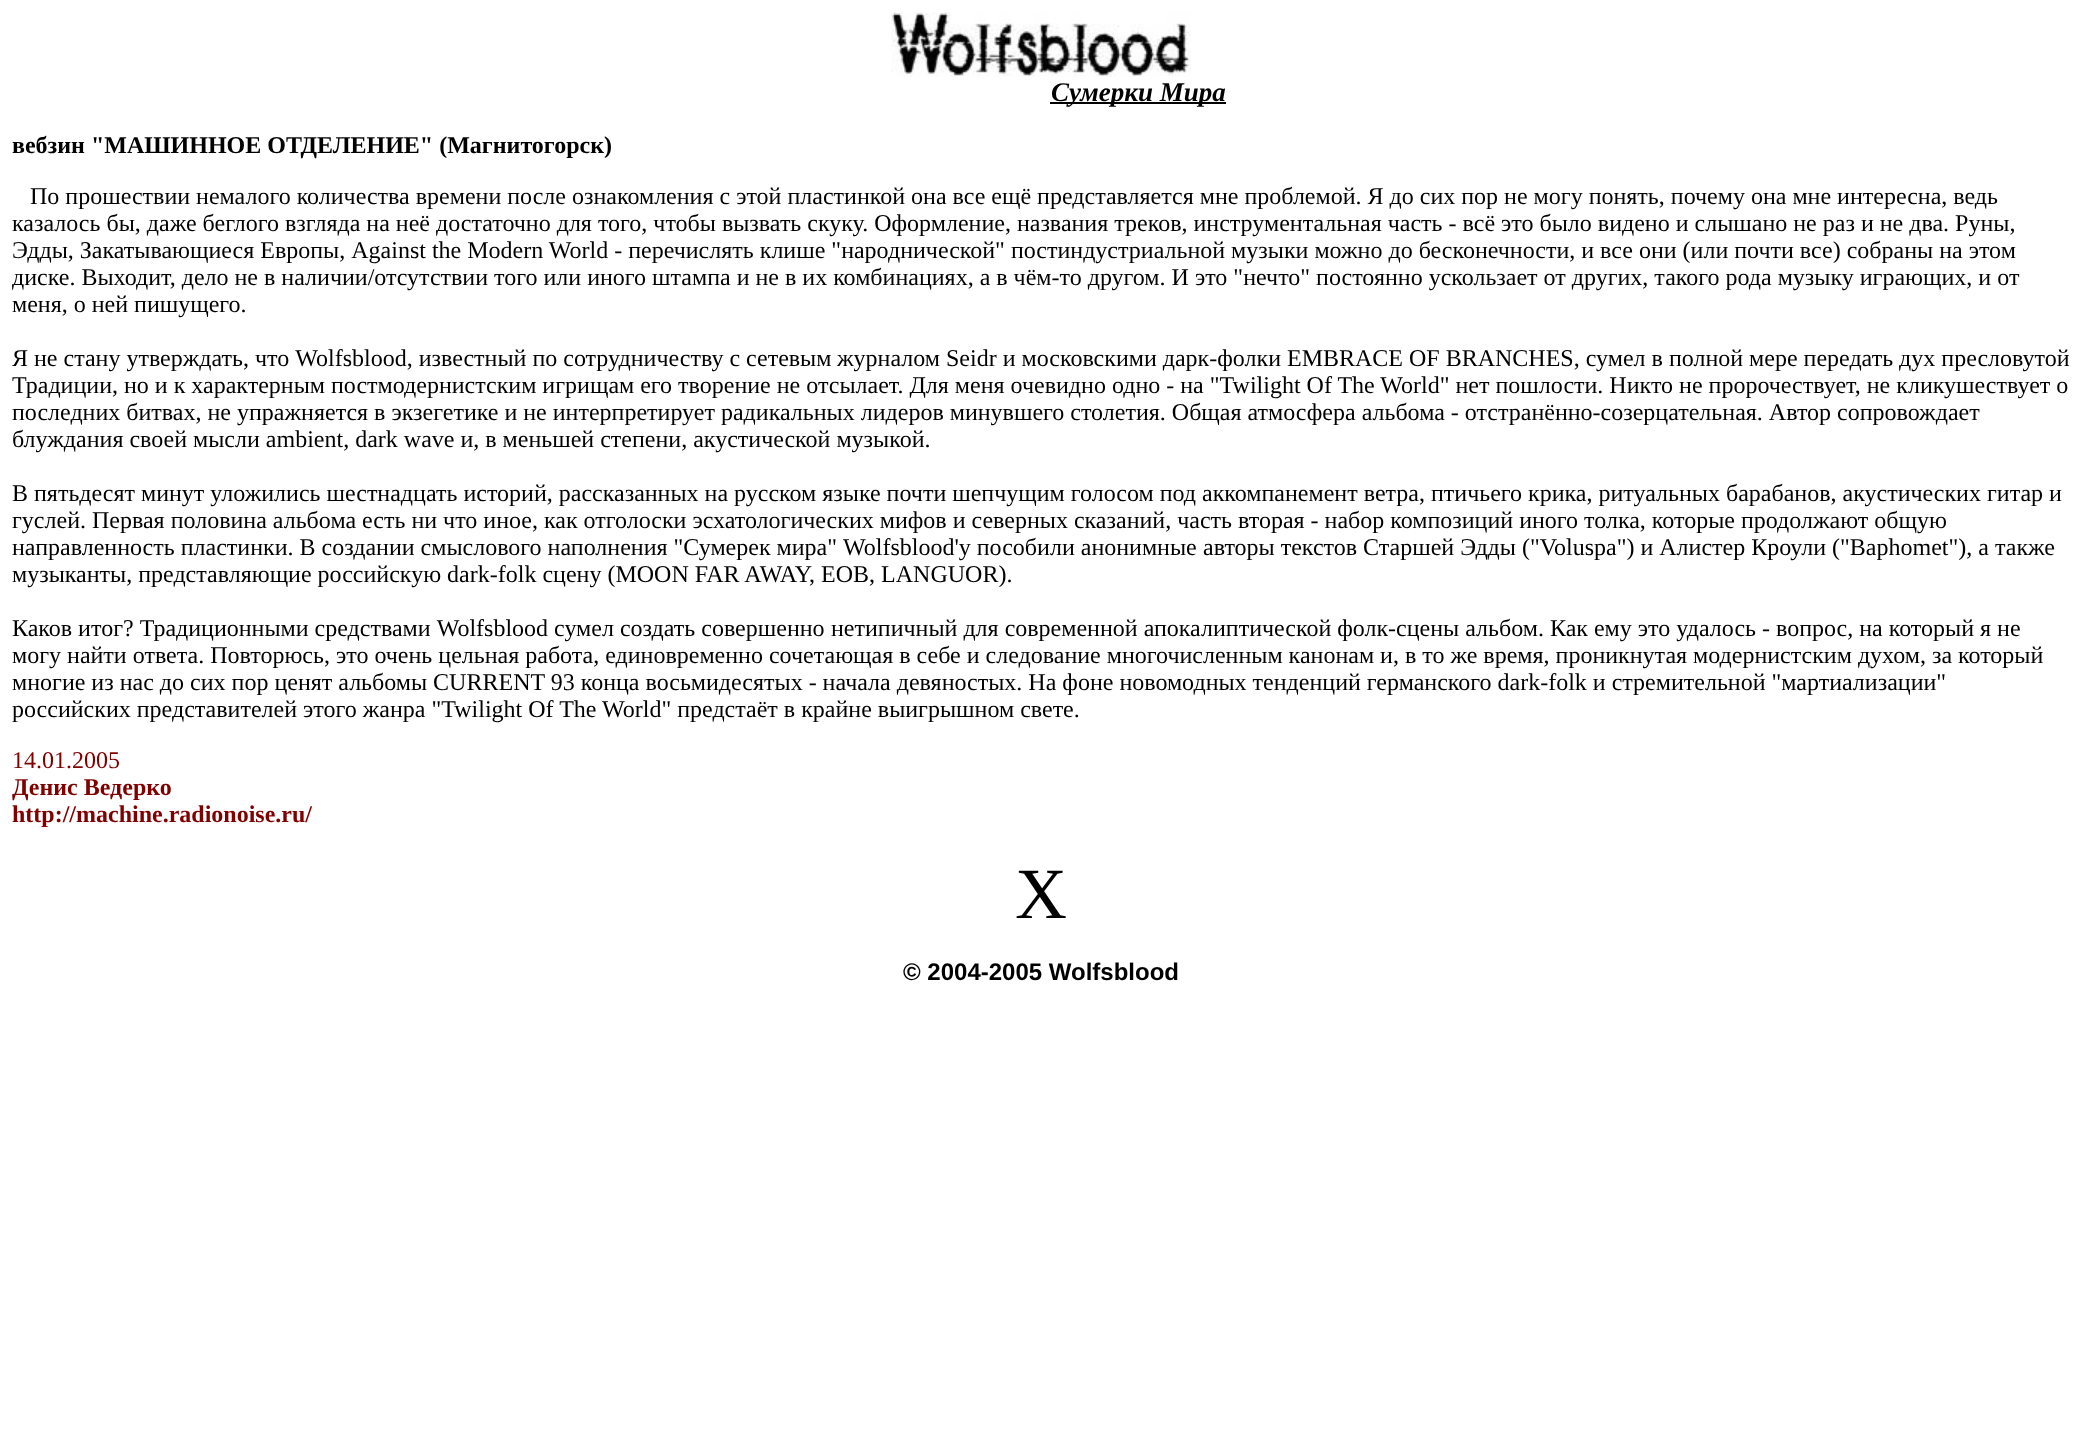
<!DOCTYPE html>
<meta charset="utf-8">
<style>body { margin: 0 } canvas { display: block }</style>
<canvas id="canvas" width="2082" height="1436"></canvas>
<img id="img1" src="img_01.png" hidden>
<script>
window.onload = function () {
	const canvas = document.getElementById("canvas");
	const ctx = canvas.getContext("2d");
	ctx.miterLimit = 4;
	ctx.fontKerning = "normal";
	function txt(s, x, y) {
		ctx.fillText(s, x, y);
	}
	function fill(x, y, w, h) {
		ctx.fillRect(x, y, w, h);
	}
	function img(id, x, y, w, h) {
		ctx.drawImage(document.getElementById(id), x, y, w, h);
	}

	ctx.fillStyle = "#FFFFFF";
	fill(0, 0, 2082, 1436);
	img("img1", 891, 12, 300, 65);
	ctx.fillStyle = "#000000";
	fill(1050, 102, 176, 2);
	ctx.font = "italic bold 27px Liberation Serif";
	txt("Сумерки Мира", 1051, 101);
	ctx.font = "bold 24px Liberation Serif";
	txt("вебзин \"МАШИННОЕ ОТДЕЛЕНИЕ\" (Магнитогорск)", 12, 153);
	ctx.font = "24px Liberation Serif";
	txt("По прошествии немалого количества времени после ознакомления с этой пластинкой она все ещё представляется мне проблемой. Я до сих пор не могу понять, почему она мне интересна, ведь", 30, 204);
	txt("казалось бы, даже беглого взгляда на неё достаточно для того, чтобы вызвать скуку. Оформление, названия треков, инструментальная часть - всё это было видено и слышано не раз и не два. Руны,", 12, 231);
	txt("Эдды, Закатывающиеся Европы, Against the Modern World - перечислять клише \"народнической\" постиндустриальной музыки можно до бесконечности, и все они (или почти все) собраны на этом", 12, 258);
	txt("диске. Выходит, дело не в наличии/отсутствии того или иного штампа и не в их комбинациях, а в чём-то другом. И это \"нечто\" постоянно ускользает от других, такого рода музыку играющих, и от", 12, 285);
	txt("меня, о ней пишущего.", 12, 312);
	txt("Я не стану утверждать, что Wolfsblood, известный по сотрудничеству с сетевым", 12, 366);
	txt("журналом Seidr и московскими дарк-фолки EMBRACE OF BRANCHES, сумел в полной мере передать дух пресловутой", 837, 366);
	txt("Традиции, но и к характерным постмодернистским игрищам его творение не отсылает. Для меня очевидно одно - на \"Twilight Of The World\" нет пошлости. Никто не пророчествует, не кликушествует о", 12, 393);
	txt("последних битвах, не упражняется в экзегетике и не интерпретирует радикальных лидеров минувшего столетия. Общая атмосфера альбома - отстранённо-созерцательная. Автор сопровождает", 12, 420);
	txt("блуждания своей мысли ambient, dark wave и, в меньшей степени, акустической музыкой.", 12, 447);
	txt("В пятьдесят минут уложились шестнадцать историй, рассказанных на русском языке почти шепчущим голосом под аккомпанемент ветра, птичьего крика, ритуальных барабанов, акустических гитар и", 12, 501);
	txt("гуслей. Первая половина альбома есть ни что иное, как отголоски эсхатологических мифов и северных сказаний, часть вторая - набор композиций иного толка, которые продолжают общую", 12, 528);
	txt("направленность пластинки. В создании смыслового наполнения \"Сумерек мира\" Wolfsblood'у пособили анонимные", 12, 555);
	txt("авторы текстов Старшей Эдды (\"Voluspa\") и Алистер Кроули (\"Baphomet\"), а также", 1203, 555);
	txt("музыканты, представляющие российскую dark-folk сцену (MOON FAR AWAY, EOB, LANGUOR).", 12, 582);
	txt("Каков итог? Традиционными средствами Wolfsblood сумел создать совершенно", 12, 636);
	txt("нетипичный для современной апокалиптической фолк-сцены альбом. Как ему это удалось - вопрос, на который я не", 831, 636);
	txt("могу найти ответа. Повторюсь, это очень цельная работа, единовременно сочетающая в себе и следование многочисленным канонам и, в то же время, проникнутая модернистским духом, за который", 12, 663);
	txt("многие из нас до сих пор ценят альбомы CURRENT 93 конца восьмидесятых - начала девяностых. На фоне новомодных тенденций германского dark-folk и стремительной \"мартиализации\"", 12, 690);
	txt("российских представителей этого жанра \"Twilight Of The World\" предстаёт в крайне выигрышном свете.", 12, 717);
	ctx.fillStyle = "#800000";
	txt("14.01.2005", 12, 768);
	ctx.font = "bold 24px Liberation Serif";
	txt("Денис Ведерко", 12, 795);
	txt("http://machine.radionoise.ru/", 12, 822);
	ctx.font = "72px Liberation Serif";
	ctx.fillStyle = "#000000";
	txt("X", 1015, 918);
	ctx.font = "bold 24px Liberation Sans";
	txt("© 2004-2005 Wolfsblood", 903, 980);
};
</script>
